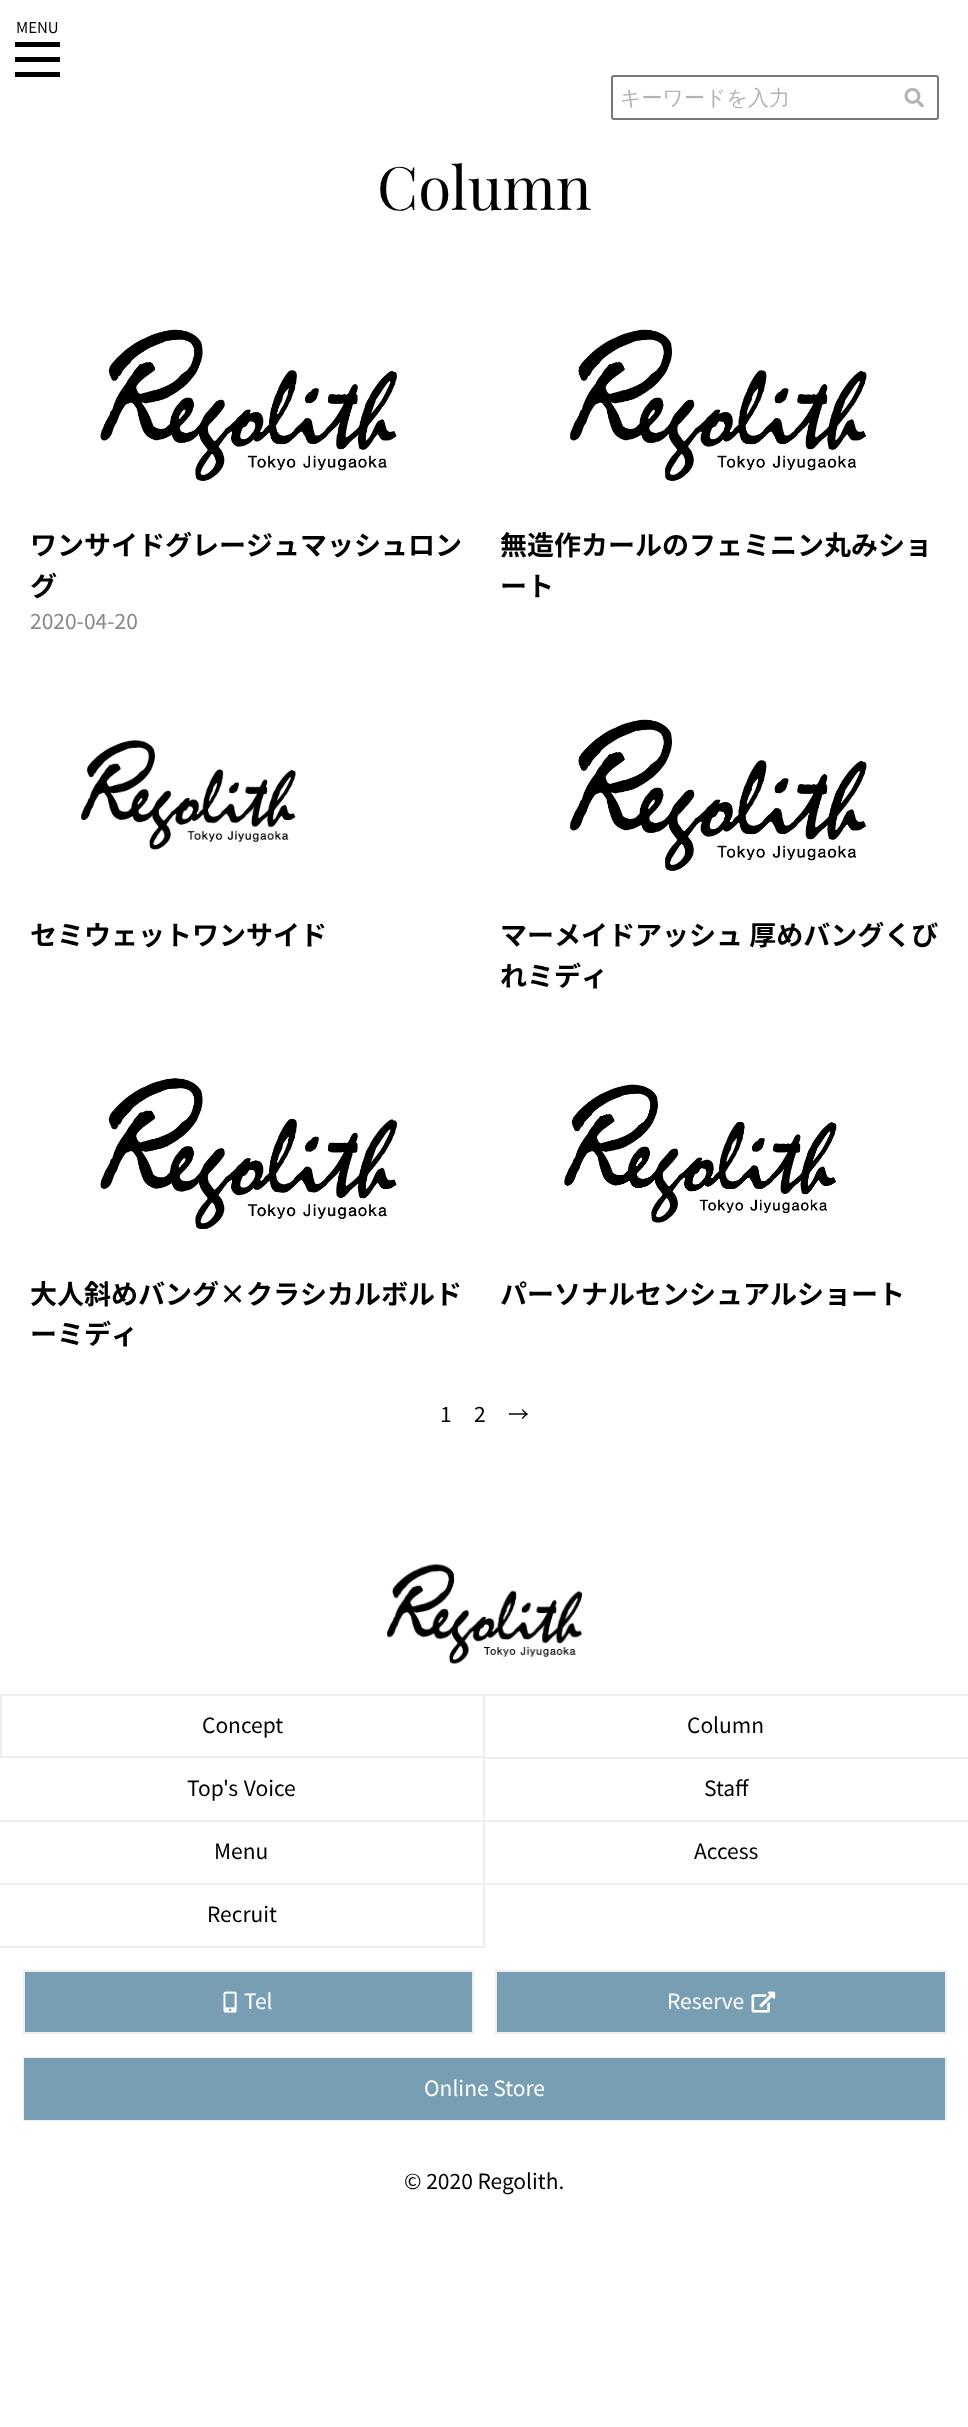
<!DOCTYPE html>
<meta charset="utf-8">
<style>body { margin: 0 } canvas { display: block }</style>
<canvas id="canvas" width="968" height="2427"></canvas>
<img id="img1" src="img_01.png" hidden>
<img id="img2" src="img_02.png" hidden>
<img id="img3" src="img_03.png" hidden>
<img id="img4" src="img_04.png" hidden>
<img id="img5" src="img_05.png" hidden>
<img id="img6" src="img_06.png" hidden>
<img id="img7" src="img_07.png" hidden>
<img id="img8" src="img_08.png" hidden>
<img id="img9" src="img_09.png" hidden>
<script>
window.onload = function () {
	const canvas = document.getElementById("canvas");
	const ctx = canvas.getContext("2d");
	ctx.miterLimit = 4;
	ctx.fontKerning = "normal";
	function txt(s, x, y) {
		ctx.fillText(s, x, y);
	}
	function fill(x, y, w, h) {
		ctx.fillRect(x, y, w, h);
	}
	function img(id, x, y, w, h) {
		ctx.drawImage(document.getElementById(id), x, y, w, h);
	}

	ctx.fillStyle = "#FFFFFF";
	fill(0, 0, 968, 2427);
	ctx.fillStyle = "#000000";
	fill(15, 57, 45, 5);
	fill(15, 42, 45, 5);
	fill(15, 72, 45, 5);
	ctx.beginPath();
	ctx.roundRect(612, 76, 326, 43, 2);
	ctx.strokeStyle = "#767676";
	ctx.lineWidth = 2;
	ctx.stroke();
	img("img1", 904, 88, 20, 20);
	img("img2", 100, 329, 297, 152);
	img("img3", 570, 329, 297, 152);
	img("img4", 81, 739, 215, 111);
	img("img3", 570, 719, 297, 152);
	img("img5", 100, 1078, 297, 151);
	img("img6", 564, 1084, 273, 139);
	img("img7", 387, 1564, 195, 100);
	ctx.strokeStyle = "#EEEEEE";
	ctx.strokeRect(1, 1695, 483, 62);
	ctx.fillStyle = "#EEEEEE";
	fill(485, 1694, 483, 2);
	fill(485, 1757, 483, 2);
	fill(483, 1758, 2, 63);
	fill(0, 1820, 968, 2);
	fill(483, 1821, 2, 63);
	fill(0, 1883, 968, 2);
	fill(483, 1884, 2, 63);
	fill(0, 1946, 485, 2);
	ctx.fillStyle = "#789EB3";
	ctx.beginPath();
	ctx.rect(24, 1971, 449, 62);
	ctx.fill();
	ctx.stroke();
	img("img8", 223, 1991, 14, 22);
	ctx.beginPath();
	ctx.rect(496, 1971, 450, 62);
	ctx.fill();
	ctx.stroke();
	img("img9", 751, 1991, 25, 22);
	ctx.strokeRect(24, 2058, 922, 62);
	fill(24, 2058, 921, 62);
	ctx.font = "15px Noto Sans JP";
	ctx.fillStyle = "#000000";
	txt("MENU", 16, 33);
	ctx.font = "500 21px WenQuanYi Zen Hei";
	ctx.fillStyle = "#B3B3B3";
	txt("キーワードを入力", 620, 105);
	ctx.font = "60px Playfair Display";
	ctx.fillStyle = "#000000";
	txt("Column", 377, 210);
	ctx.font = "bold 27px Noto Sans JP";
	txt("ワンサイドグレージュマッシュロン", 30, 555);
	txt("グ", 30, 596);
	ctx.font = "21px Noto Sans JP";
	ctx.fillStyle = "#888888";
	txt("2020-04-20", 30, 629);
	ctx.font = "bold 27px Noto Sans JP";
	ctx.fillStyle = "#000000";
	txt("無造作カールのフェミニン丸みショ", 500, 555);
	txt("ート", 500, 596);
	txt("セミウェットワンサイド", 30, 945);
	txt("マーメイドアッシュ 厚めバングくび", 500, 945);
	txt("れミディ", 500, 986);
	txt("大人斜めバング×クラシカルボルド", 30, 1304);
	txt("ーミディ", 30, 1344);
	txt("パーソナルセンシュアルショート", 500, 1304);
	ctx.font = "21px Noto Sans JP";
	txt("1", 440, 1422);
	txt("2", 474, 1422);
	txt("→", 508, 1422);
	txt("Concept", 202, 1733);
	txt("Column", 687, 1733);
	ctx.wordSpacing = "1px";
	txt("Top's Voice", 187, 1796);
	ctx.wordSpacing = "0px";
	txt("Staff", 704, 1796);
	txt("Menu", 214, 1859);
	txt("Access", 694, 1859);
	txt("Recruit", 207, 1922);
	ctx.fillStyle = "#FFFFFF";
	txt("Tel", 244, 2009);
	txt("Reserve", 667, 2009);
	txt("Online Store", 424, 2096);
	ctx.fillStyle = "#000000";
	txt("© 2020 Regolith.", 404, 2189);
};
</script>
